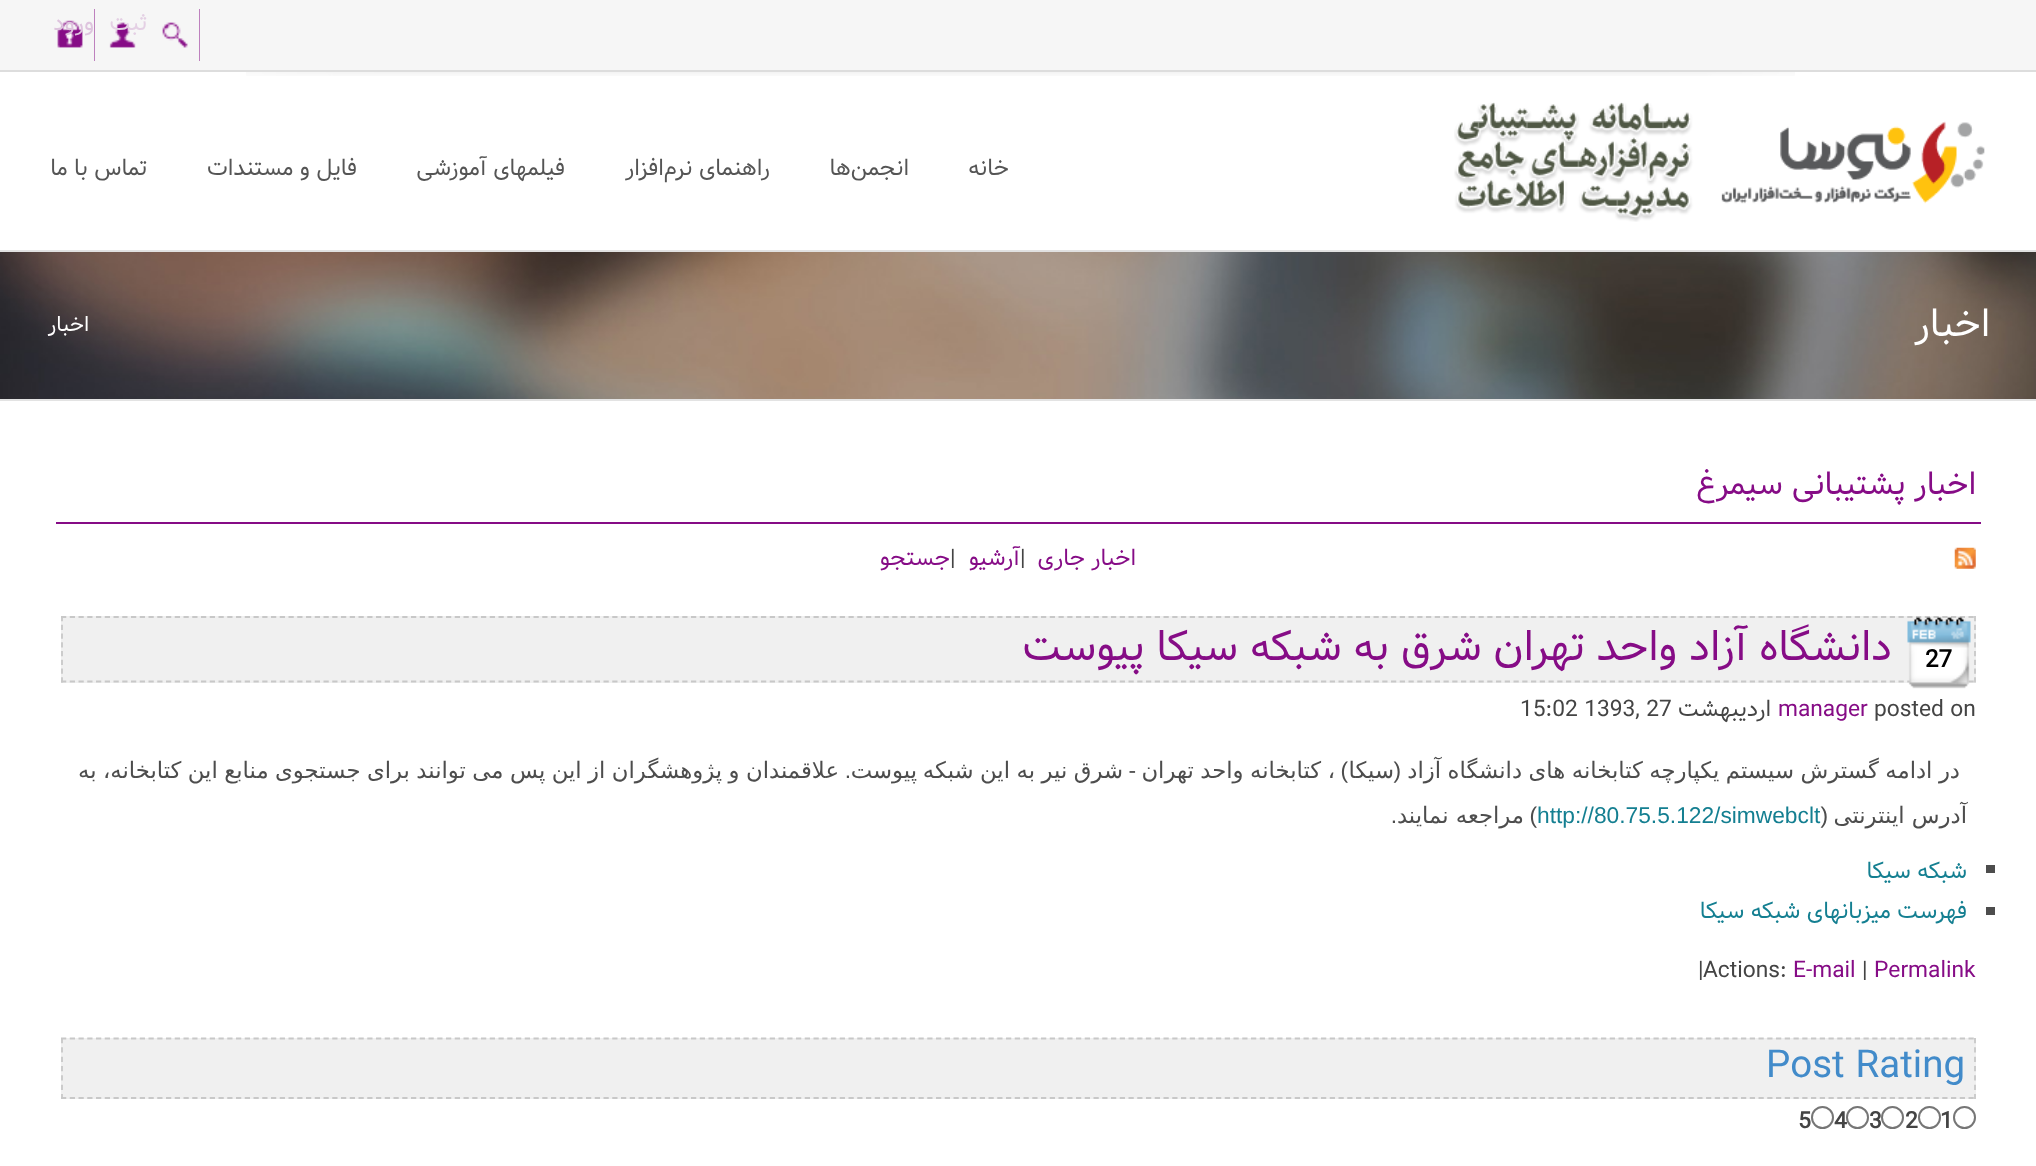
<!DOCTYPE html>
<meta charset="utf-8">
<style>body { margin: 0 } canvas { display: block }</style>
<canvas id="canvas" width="2036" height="1166"></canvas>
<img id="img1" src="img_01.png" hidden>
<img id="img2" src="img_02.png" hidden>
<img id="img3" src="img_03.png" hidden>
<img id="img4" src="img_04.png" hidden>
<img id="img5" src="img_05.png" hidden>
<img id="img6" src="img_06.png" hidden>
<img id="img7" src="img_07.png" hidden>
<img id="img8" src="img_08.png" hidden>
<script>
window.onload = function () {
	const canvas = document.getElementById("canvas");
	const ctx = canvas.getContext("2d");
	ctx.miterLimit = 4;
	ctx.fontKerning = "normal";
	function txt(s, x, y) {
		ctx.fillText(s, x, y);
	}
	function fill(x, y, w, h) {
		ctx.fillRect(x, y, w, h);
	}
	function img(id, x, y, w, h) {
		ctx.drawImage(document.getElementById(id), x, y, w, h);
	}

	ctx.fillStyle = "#FFFFFF";
	fill(0, 0, 2036, 1166);
	ctx.fillStyle = "#F6F6F6";
	fill(0, 0, 2036, 70);
	ctx.fillStyle = "#DDDDDD";
	fill(0, 70, 2036, 2);
	ctx.fillStyle = "#860C86";
	fill(162, 9, 38, 52);
	img("img1", 147, 9, 53, 52);
	fill(109, 22, 27, 26);
	img("img2", 95, 9, 52, 52);
	fill(57, 9, 38, 52);
	img("img3", 42, 9, 53, 52);
	img("img4", 246, 72, 1549, 4);
	ctx.fillStyle = "#E1E1E1";
	fill(0, 250, 2036, 2);
	img("img5", 1454, 102, 531, 120);
	img("img6", 0, 252, 2036, 147);
	ctx.fillStyle = "#E3E3E3";
	fill(0, 399, 2036, 2);
	ctx.fillStyle = "#860C86";
	fill(56, 522, 1925, 2);
	img("img7", 1954, 547, 22, 22);
	ctx.fillStyle = "#F0F0F0";
	fill(61, 616, 1915, 67);
	ctx.beginPath();
	ctx.moveTo(61, 617);
	ctx.lineTo(1976, 617);
	ctx.strokeStyle = "#C8C8C8";
	ctx.lineWidth = 1.8;
	ctx.setLineDash([5.25, 3.5]);
	ctx.stroke();
	ctx.beginPath();
	ctx.moveTo(61, 681.5);
	ctx.lineTo(1976, 681.5);
	ctx.stroke();
	img("img8", 1907, 617, 64, 72);
	ctx.beginPath();
	ctx.moveTo(1975, 616);
	ctx.lineTo(1975, 682.5);
	ctx.stroke();
	ctx.beginPath();
	ctx.moveTo(62, 616);
	ctx.lineTo(62, 682.5);
	ctx.stroke();
	ctx.fillStyle = "#4D4D4D";
	fill(1986, 865, 9, 8);
	fill(1986, 907, 9, 8);
	ctx.fillStyle = "#F0F0F0";
	fill(61, 1038, 1915, 61);
	ctx.beginPath();
	ctx.moveTo(61, 1038.5);
	ctx.lineTo(1976, 1038.5);
	ctx.stroke();
	ctx.beginPath();
	ctx.moveTo(1975, 1038);
	ctx.lineTo(1975, 1099);
	ctx.setLineDash([5.25, 4.08]);
	ctx.stroke();
	ctx.beginPath();
	ctx.moveTo(61, 1098);
	ctx.lineTo(1976, 1098);
	ctx.setLineDash([5.25, 3.5]);
	ctx.stroke();
	ctx.beginPath();
	ctx.moveTo(62, 1038);
	ctx.lineTo(62, 1099);
	ctx.setLineDash([5.25, 4.08]);
	ctx.stroke();
	ctx.beginPath();
	ctx.arc(1964.5, 1117.5, 10.5, 0, Math.PI * 2);
	ctx.strokeStyle = "#767676";
	ctx.lineWidth = 2;
	ctx.setLineDash([]);
	ctx.stroke();
	ctx.beginPath();
	ctx.arc(1929.5, 1117.5, 10.5, 0, Math.PI * 2);
	ctx.stroke();
	ctx.beginPath();
	ctx.arc(1892.5, 1117.5, 10.5, 0, Math.PI * 2);
	ctx.stroke();
	ctx.beginPath();
	ctx.arc(1857.5, 1117.5, 10.5, 0, Math.PI * 2);
	ctx.stroke();
	ctx.beginPath();
	ctx.arc(1822.5, 1117.5, 10.5, 0, Math.PI * 2);
	ctx.stroke();
	ctx.direction = "rtl";
	ctx.font = "22.75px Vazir";
	ctx.fillStyle = "#E4D0E4";
	txt("ثبت‌", 147, 30);
	ctx.fillStyle = "#DEC4DE";
	txt("ورود", 94, 30);
	ctx.fillStyle = "#555555";
	txt("خانه", 1009, 175);
	txt("انجمن‌ها", 909, 175);
	txt("راهنمای نرم‌افزار", 770, 175);
	txt("فیلمهای آموزشی", 565, 175);
	txt("فایل و مستندات", 357, 175);
	txt("تماس با ما", 147, 175);
	ctx.font = "38.5px Vazir";
	ctx.fillStyle = "#FFFFFF";
	txt("اخبار", 1990, 336);
	ctx.font = "21px Vazir";
	txt("اخبار", 89, 331);
	ctx.font = "31.5px Vazir";
	ctx.fillStyle = "#860C86";
	txt("اخبار پشتیبانی سیمرغ", 1976, 494);
	ctx.font = "22.75px Vazir";
	txt("اخبار جاری", 1136, 565);
	ctx.direction = "ltr";
	ctx.fillStyle = "#444444";
	txt("|", 1020, 565);
	ctx.direction = "rtl";
	ctx.fillStyle = "#860C86";
	txt("آرشیو", 1020, 565);
	ctx.direction = "ltr";
	ctx.fillStyle = "#444444";
	txt("|", 950, 565);
	ctx.direction = "rtl";
	ctx.fillStyle = "#860C86";
	txt("جستجو", 950, 565);
	ctx.direction = "ltr";
	ctx.font = "bold 24px Vazir";
	ctx.fillStyle = "#000000";
	txt("27", 1925, 667);
	ctx.direction = "rtl";
	ctx.font = "42px Vazir";
	ctx.fillStyle = "#860C86";
	txt("دانشگاه آزاد واحد تهران شرق به شبکه سیکا پیوست", 1892, 660);
	ctx.direction = "ltr";
	ctx.font = "22.75px Vazir";
	ctx.fillStyle = "#444444";
	txt("posted on", 1874, 716);
	ctx.fillStyle = "#860C86";
	txt("manager", 1778, 716);
	ctx.direction = "rtl";
	ctx.fillStyle = "#444444";
	txt("اردیبهشت", 1771, 716);
	ctx.direction = "ltr";
	txt("15:02 1393, 27", 1520, 716);
	ctx.wordSpacing = "-0.75px";
	ctx.direction = "rtl";
	ctx.font = "22.75px DejaVu Sans";
	ctx.fillStyle = "#4D4D4D";
	txt("در ادامه گسترش سیستم یکپارچه کتابخانه های دانشگاه آزاد", 1960, 778);
	ctx.wordSpacing = "0px";
	ctx.font = "22.75px Liberation Sans";
	txt("(", 1401, 778);
	ctx.font = "22.75px DejaVu Sans";
	txt("سیکا", 1394, 778);
	ctx.font = "22.75px Liberation Sans";
	txt(")", 1348, 778);
	ctx.wordSpacing = "-0.75px";
	ctx.font = "22.75px DejaVu Sans";
	txt("، کتابخانه واحد تهران", 1335, 778);
	ctx.wordSpacing = "0px";
	ctx.font = "22.75px Liberation Sans";
	txt("-", 1136, 778);
	ctx.wordSpacing = "-0.75px";
	ctx.font = "22.75px DejaVu Sans";
	txt("شرق نیر به این شبکه", 1123, 778);
	ctx.wordSpacing = "0px";
	txt("پیوست", 917, 778);
	ctx.wordSpacing = "-0.8px";
	txt("علاقمندان و پژوهشگران از این پس می توانند برای جستجوی منابع این کتابخانه، به", 839, 778);
	ctx.wordSpacing = "0px";
	ctx.font = "22.75px Liberation Sans";
	txt(".", 851, 778);
	ctx.font = "22.75px DejaVu Sans";
	txt("آدرس اینترنتی", 1967, 823);
	ctx.font = "22.75px Liberation Sans";
	txt("(", 1828, 823);
	ctx.direction = "ltr";
	ctx.fillStyle = "#147F91";
	txt("http://80.75.5.122/simwebclt", 1537, 823);
	ctx.direction = "rtl";
	ctx.fillStyle = "#4D4D4D";
	txt(")", 1537, 823);
	ctx.font = "22.75px DejaVu Sans";
	txt("مراجعه نمایند", 1524, 823);
	ctx.font = "22.75px Liberation Sans";
	txt(".", 1397, 823);
	ctx.font = "22.75px Vazir";
	ctx.fillStyle = "#147F91";
	txt("شبکه سیکا", 1967, 878);
	txt("فهرست میزبانهای شبکه سیکا", 1967, 918);
	ctx.direction = "ltr";
	ctx.fillStyle = "#860C86";
	txt("Permalink", 1874, 977);
	ctx.fillStyle = "#444444";
	txt("|", 1862, 977);
	ctx.fillStyle = "#860C86";
	txt("E-mail", 1793, 977);
	ctx.fillStyle = "#444444";
	txt("Actions:", 1703, 977);
	txt("|", 1698, 977);
	ctx.font = "38.5px Vazir";
	ctx.fillStyle = "#428BCA";
	txt("Post Rating", 1766, 1077);
	ctx.font = "bold 22.75px Vazir";
	ctx.fillStyle = "#444444";
	txt("1", 1940, 1128);
	txt("2", 1905, 1128);
	txt("3", 1869, 1128);
	txt("4", 1834, 1128);
	txt("5", 1798, 1128);
};
</script>
